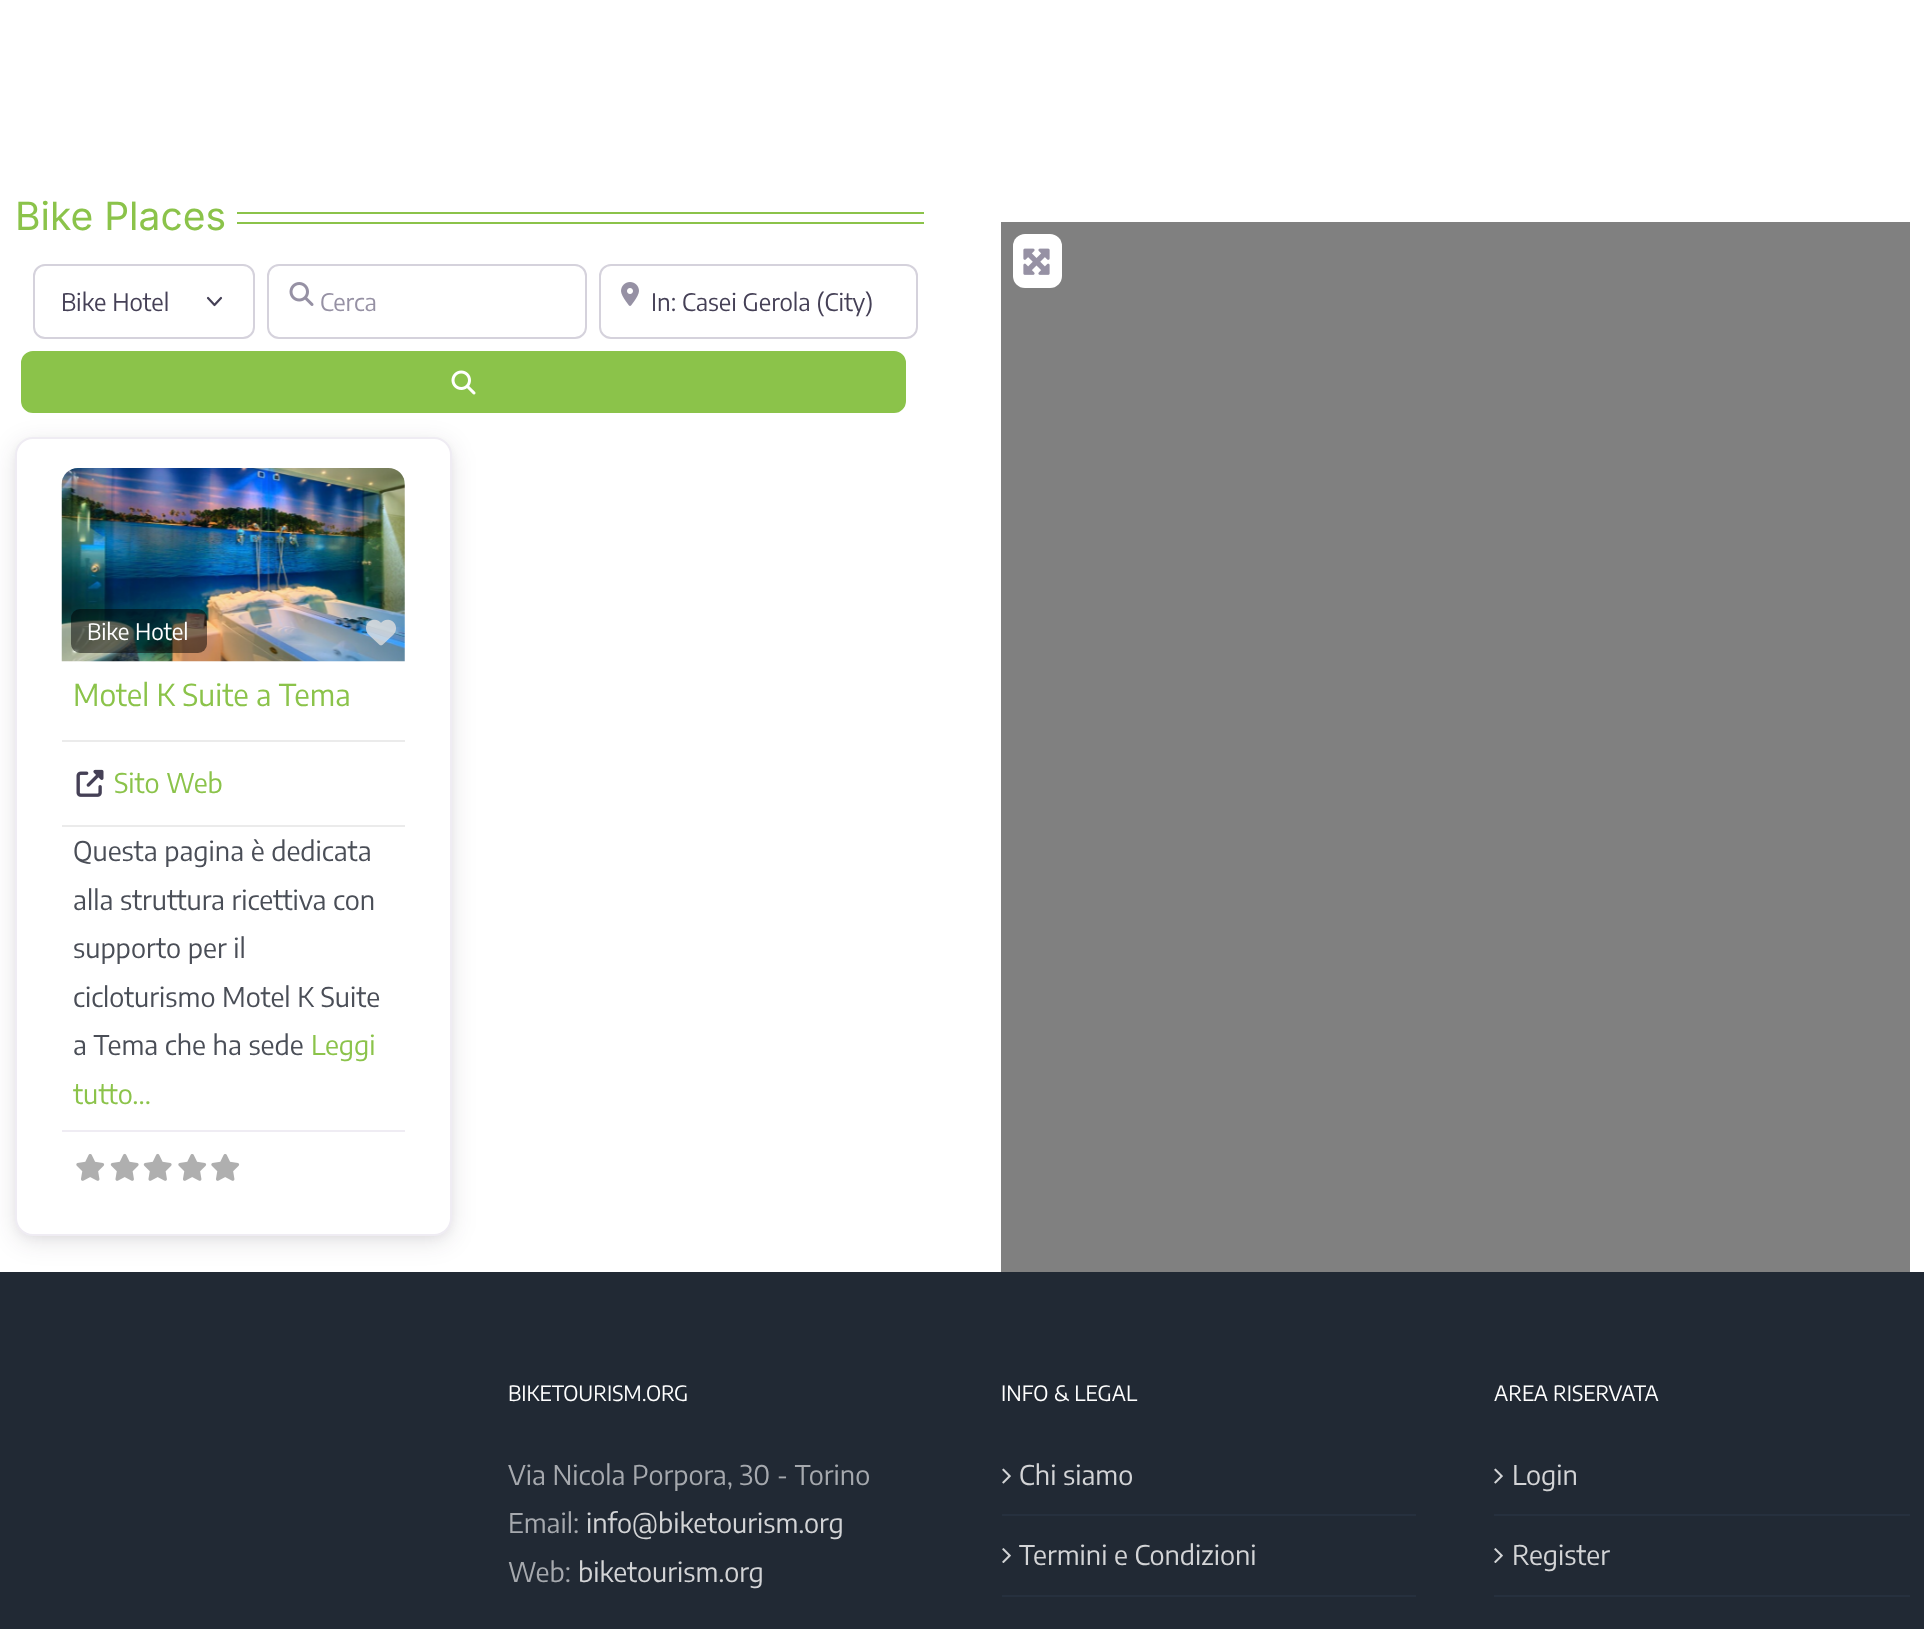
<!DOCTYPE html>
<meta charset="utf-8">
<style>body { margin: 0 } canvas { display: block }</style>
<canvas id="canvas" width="1924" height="1629"></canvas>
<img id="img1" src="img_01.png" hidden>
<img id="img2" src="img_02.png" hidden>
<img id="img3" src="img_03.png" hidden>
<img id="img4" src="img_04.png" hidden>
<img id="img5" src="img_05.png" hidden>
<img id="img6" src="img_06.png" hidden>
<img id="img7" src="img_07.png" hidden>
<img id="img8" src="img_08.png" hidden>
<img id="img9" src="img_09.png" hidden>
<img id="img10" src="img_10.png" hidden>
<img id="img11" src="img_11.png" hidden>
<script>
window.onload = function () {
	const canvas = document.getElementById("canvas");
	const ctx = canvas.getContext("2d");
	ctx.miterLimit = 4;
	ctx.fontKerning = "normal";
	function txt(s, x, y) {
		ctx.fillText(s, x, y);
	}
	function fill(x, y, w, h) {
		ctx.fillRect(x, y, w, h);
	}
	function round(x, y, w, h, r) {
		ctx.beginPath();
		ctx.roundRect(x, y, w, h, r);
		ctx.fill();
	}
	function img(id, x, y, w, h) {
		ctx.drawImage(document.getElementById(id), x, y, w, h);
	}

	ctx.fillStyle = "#FFFFFF";
	fill(0, 0, 1924, 1629);
	ctx.fillStyle = "#8BC34A";
	fill(237, 212, 687, 2);
	fill(237, 222, 687, 2);
	ctx.beginPath();
	ctx.moveTo(208, 298);
	ctx.lineTo(214.5, 305);
	ctx.lineTo(221, 298);
	ctx.strokeStyle = "#454056";
	ctx.lineWidth = 2.2;
	ctx.lineCap = "round";
	ctx.lineJoin = "round";
	ctx.stroke();
	ctx.beginPath();
	ctx.roundRect(34, 265, 220, 73, 11);
	ctx.strokeStyle = "#D5D2DC";
	ctx.lineWidth = 2;
	ctx.lineJoin = "miter";
	ctx.stroke();
	ctx.beginPath();
	ctx.roundRect(268, 265, 318, 73, 11);
	ctx.stroke();
	img("img1", 289, 282, 25, 24);
	ctx.beginPath();
	ctx.roundRect(600, 265, 317, 73, 11);
	ctx.stroke();
	img("img2", 621, 282, 18, 24);
	ctx.beginPath();
	ctx.roundRect(22, 352, 883, 60, 11);
	ctx.fill();
	ctx.strokeStyle = "#8BC34A";
	ctx.stroke();
	img("img3", 451, 370, 25, 25);
	ctx.fillStyle = "#212934";
	fill(0, 1272, 1924, 357);
	ctx.fillStyle = "rgba(31, 27, 45, 0.12)";
	ctx.filter = "blur(12px)";
	ctx.beginPath();
	ctx.roundRect(15, 443, 437, 799, 18);
	ctx.fill();
	ctx.filter = "none";
	ctx.filter = "blur(6px)";
	ctx.beginPath();
	ctx.roundRect(21, 446, 425, 787, 12);
	ctx.fill();
	ctx.filter = "none";
	ctx.fillStyle = "#FFFFFF";
	ctx.beginPath();
	ctx.roundRect(16, 438, 435, 797, 17);
	ctx.fill();
	ctx.strokeStyle = "#EFECF3";
	ctx.stroke();
	img("img4", 61, 468, 344, 194);
	ctx.fillStyle = "rgba(0, 0, 0, 0.5)";
	round(71, 609, 136, 44, 9);
	img("img5", 366, 619, 30, 27);
	ctx.fillStyle = "#EBEBEB";
	fill(62, 740, 343, 2);
	fill(62, 825, 343, 2);
	img("img6", 76, 769, 28, 28);
	ctx.fillStyle = "#EFECF3";
	fill(62, 1130, 343, 2);
	img("img7", 76, 1154, 29, 27);
	img("img8", 110, 1153, 29, 28);
	img("img8", 143, 1153, 29, 28);
	img("img7", 178, 1154, 29, 27);
	img("img7", 211, 1154, 29, 27);
	ctx.fillStyle = "#808080";
	fill(1001, 222, 909, 1050);
	ctx.fillStyle = "#FFFFFF";
	round(1013, 234, 49, 54, 12);
	img("img9", 1023, 248, 27, 27);
	ctx.fillStyle = "#26303E";
	fill(1002, 1514, 414, 2);
	img("img10", 1002, 1468, 9, 16);
	fill(1002, 1595, 414, 2);
	img("img11", 1002, 1548, 9, 15);
	fill(1494, 1514, 416, 2);
	img("img10", 1494, 1468, 9, 16);
	fill(1494, 1595, 416, 2);
	img("img11", 1494, 1548, 9, 15);
	ctx.font = "39px Inter";
	ctx.fillStyle = "#8BC34A";
	txt("Bike Places", 15, 230);
	ctx.font = "24px Encode Sans Condensed";
	ctx.fillStyle = "#454056";
	txt("Bike Hotel", 61, 311);
	ctx.fillStyle = "#9691A4";
	txt("Cerca", 320, 311);
	ctx.fillStyle = "#454056";
	txt("In: Casei Gerola (City)", 651, 311);
	ctx.font = "22.5px Encode Sans Condensed";
	ctx.fillStyle = "#FFFFFF";
	txt("Bike Hotel", 87, 640);
	ctx.font = "30px Encode Sans Condensed";
	ctx.fillStyle = "#8BC34A";
	txt("Motel K Suite a Tema", 73, 706);
	ctx.font = "27px Encode Sans Condensed";
	txt("Sito Web", 114, 793);
	ctx.fillStyle = "#4A4E57";
	txt("Questa pagina è dedicata", 73, 861);
	txt("alla struttura ricettiva con", 73, 910);
	txt("supporto per il", 73, 958);
	txt("cicloturismo Motel K Suite", 73, 1007);
	txt("a Tema che ha sede", 73, 1055);
	ctx.fillStyle = "#8BC34A";
	txt("Leggi", 311, 1055);
	txt("tutto...", 73, 1104);
	ctx.font = "21px Encode Sans Condensed";
	ctx.fillStyle = "#FFFFFF";
	txt("BIKETOURISM.ORG", 508, 1401);
	ctx.font = "27px Encode Sans Condensed";
	ctx.fillStyle = "#A6A9AE";
	txt("Via Nicola Porpora, 30 - Torino", 508, 1485);
	txt("Email:", 508, 1533);
	ctx.fillStyle = "#D3D4D6";
	txt("info@biketourism.org", 586, 1533);
	ctx.fillStyle = "#A6A9AE";
	txt("Web:", 508, 1582);
	ctx.fillStyle = "#D3D4D6";
	txt("biketourism.org", 578, 1582);
	ctx.font = "21px Encode Sans Condensed";
	ctx.fillStyle = "#FFFFFF";
	txt("INFO & LEGAL", 1001, 1401);
	ctx.font = "27px Encode Sans Condensed";
	ctx.fillStyle = "#D3D4D6";
	txt("Chi siamo", 1019, 1485);
	txt("Termini e Condizioni", 1019, 1565);
	ctx.font = "21px Encode Sans Condensed";
	ctx.fillStyle = "#FFFFFF";
	txt("AREA RISERVATA", 1494, 1401);
	ctx.font = "27px Encode Sans Condensed";
	ctx.fillStyle = "#D3D4D6";
	txt("Login", 1512, 1485);
	txt("Register", 1512, 1565);
};
</script>
